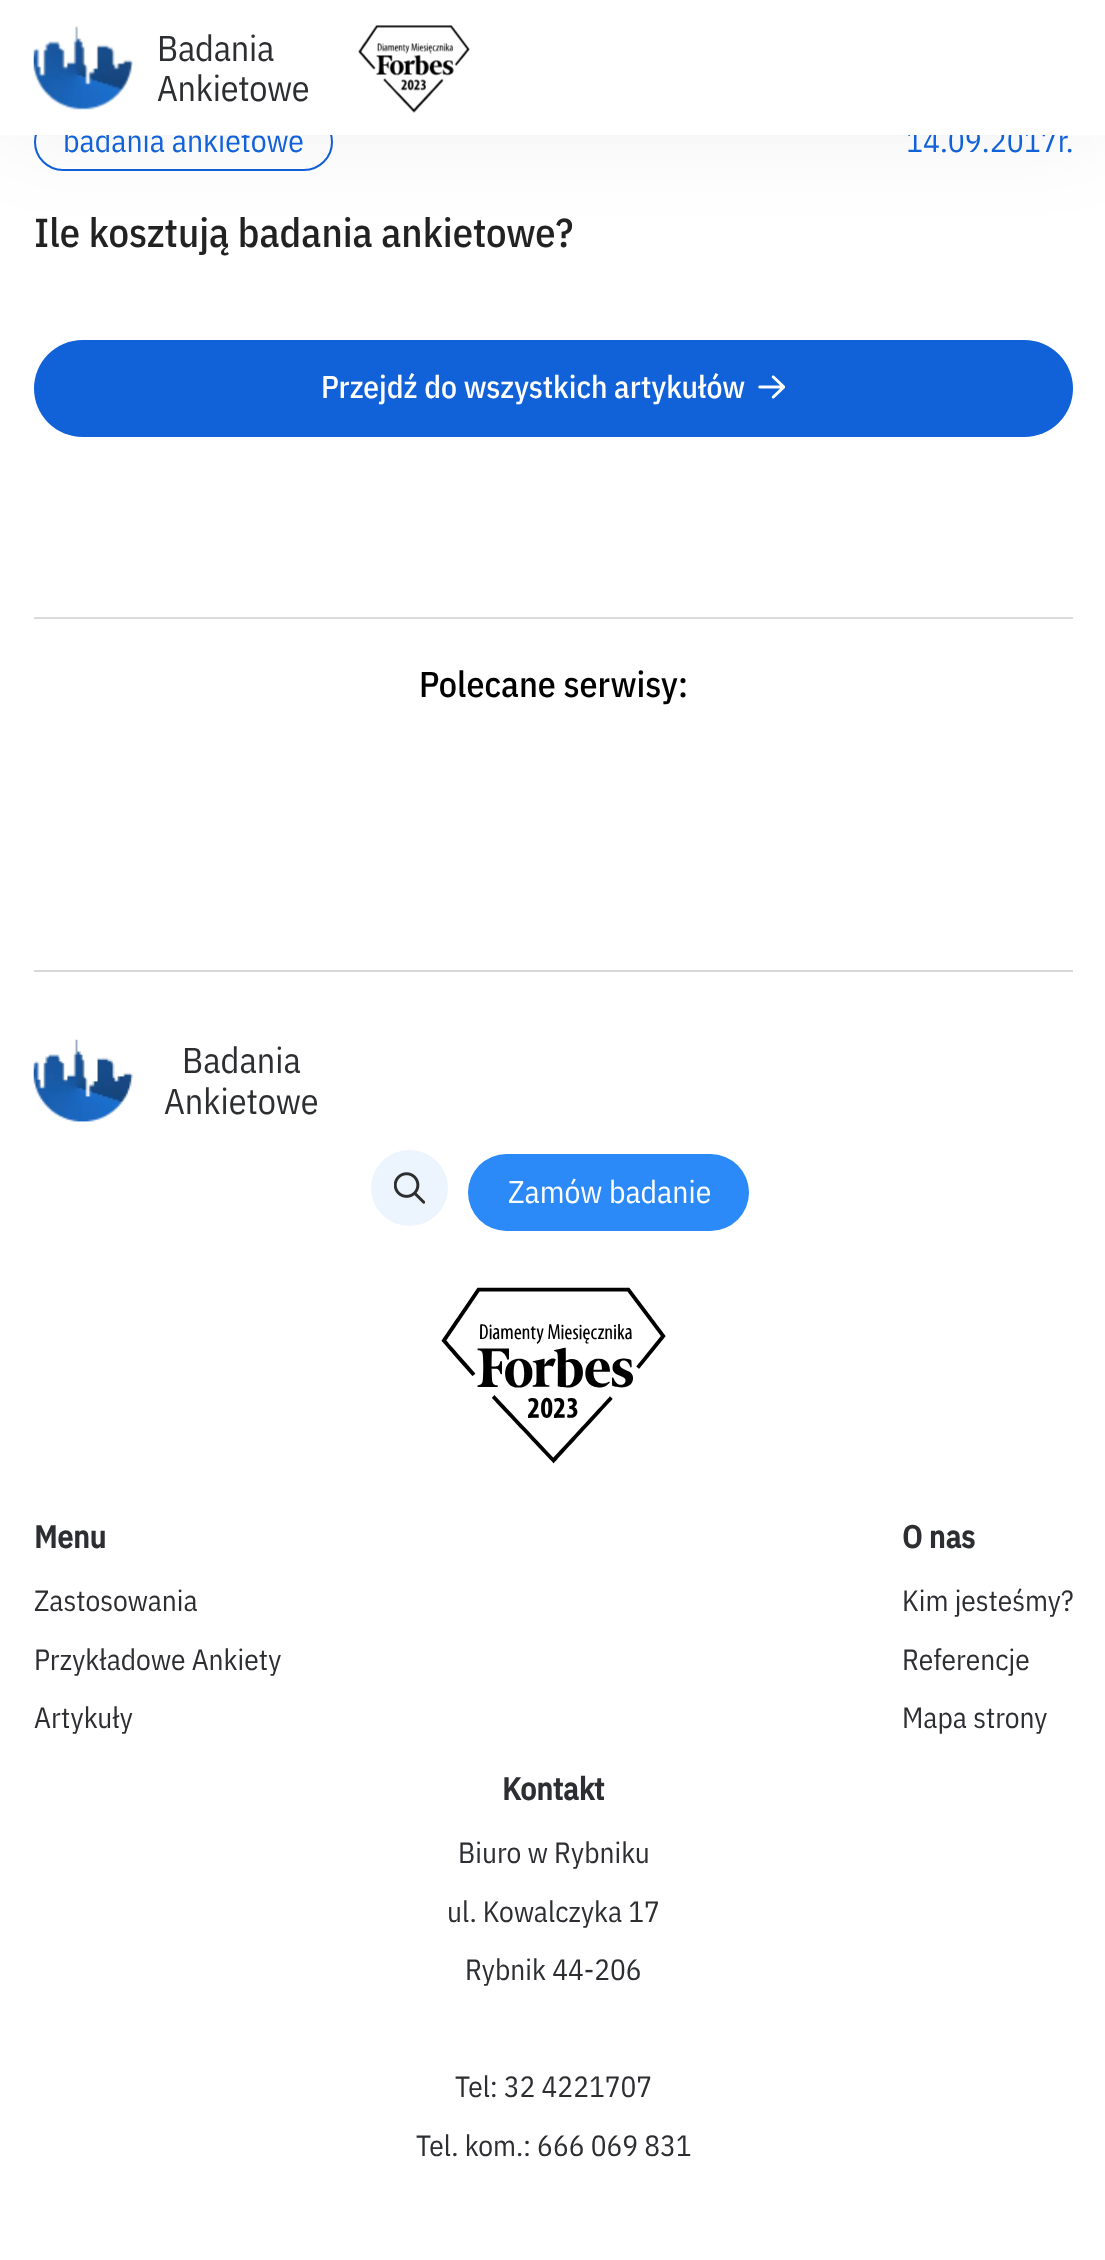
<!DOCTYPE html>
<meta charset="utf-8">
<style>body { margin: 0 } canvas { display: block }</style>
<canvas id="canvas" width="1105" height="2260"></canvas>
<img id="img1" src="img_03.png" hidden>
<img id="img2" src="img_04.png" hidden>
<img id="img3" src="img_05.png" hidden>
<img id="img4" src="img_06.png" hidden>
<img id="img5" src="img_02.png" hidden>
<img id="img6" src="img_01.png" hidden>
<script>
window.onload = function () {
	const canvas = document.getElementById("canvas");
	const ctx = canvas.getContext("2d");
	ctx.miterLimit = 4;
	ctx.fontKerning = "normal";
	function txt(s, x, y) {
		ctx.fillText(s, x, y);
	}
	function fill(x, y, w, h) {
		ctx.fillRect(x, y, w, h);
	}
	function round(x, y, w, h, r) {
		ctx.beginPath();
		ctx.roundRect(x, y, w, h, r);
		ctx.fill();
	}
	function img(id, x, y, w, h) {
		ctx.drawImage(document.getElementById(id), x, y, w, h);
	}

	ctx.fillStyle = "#FFFFFF";
	fill(0, 0, 1105, 2260);
	ctx.beginPath();
	ctx.roundRect(35, 114, 297, 56, 28);
	ctx.strokeStyle = "#1161D9";
	ctx.lineWidth = 2;
	ctx.stroke();
	ctx.fillStyle = "rgba(0, 0, 0, 0.06)";
	ctx.filter = "blur(47px)";
	ctx.beginPath();
	ctx.rect(0, 0, 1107, 135);
	ctx.fill();
	ctx.filter = "none";
	ctx.fillStyle = "#1161D9";
	round(34, 340, 1039, 97, 48.5);
	img("img1", 758, 375, 27, 24);
	ctx.fillStyle = "#DBDBDB";
	fill(34, 617, 1039, 2);
	ctx.fillStyle = "#D8D8D8";
	fill(34, 970, 1039, 2);
	img("img2", 33, 1039, 100, 83);
	ctx.fillStyle = "#ECF4FE";
	round(371, 1150, 77, 76, 38);
	img("img3", 394, 1172, 31, 32);
	ctx.fillStyle = "#2B8AF7";
	round(468, 1154, 281, 77, 38.5);
	img("img4", 441, 1287, 225, 177);
	ctx.font = "31.5px IBM Plex Sans Condensed";
	ctx.fillStyle = "#1161D9";
	txt("badania ankietowe", 63, 152);
	txt("14.09.2017r.", 906, 152);
	ctx.fillStyle = "#FFFFFF";
	fill(0, 0, 1105, 135);
	img("img5", 358, 25, 112, 88);
	ctx.letterSpacing = "-0.25px";
	ctx.font = "36px IBM Plex Sans Condensed";
	ctx.fillStyle = "#2D2E32";
	txt("Ankietowe", 157, 101);
	txt("Badania", 157, 61);
	img("img6", 33, 26, 100, 84);
	ctx.letterSpacing = "0px";
	ctx.font = "500 40.5px IBM Plex Sans Condensed";
	ctx.fillStyle = "#222222";
	txt("Ile kosztują badania ankietowe?", 34, 247);
	ctx.font = "500 31.5px IBM Plex Sans Condensed";
	ctx.fillStyle = "#FFFFFF";
	txt("Przejdź do wszystkich artykułów", 321, 398);
	ctx.font = "500 36px IBM Plex Sans Condensed";
	ctx.fillStyle = "#000000";
	txt("Polecane serwisy:", 419, 697);
	ctx.font = "36px IBM Plex Sans Condensed";
	ctx.fillStyle = "#2D2E32";
	txt("Badania", 182, 1073);
	txt("Ankietowe", 164, 1114);
	ctx.font = "31.5px IBM Plex Sans Condensed";
	ctx.fillStyle = "#FFFFFF";
	txt("Zamów badanie", 508, 1203);
	ctx.font = "bold 31.5px IBM Plex Sans Condensed";
	ctx.fillStyle = "#2D2E32";
	txt("Menu", 34, 1548);
	ctx.font = "29.25px IBM Plex Sans Condensed";
	txt("Zastosowania", 34, 1611);
	txt("Przykładowe Ankiety", 34, 1670);
	txt("Artykuły", 34, 1728);
	ctx.font = "bold 31.5px IBM Plex Sans Condensed";
	txt("O nas", 902, 1548);
	ctx.font = "29.25px IBM Plex Sans Condensed";
	txt("Kim jesteśmy?", 902, 1611);
	txt("Referencje", 902, 1670);
	txt("Mapa strony", 902, 1728);
	ctx.font = "bold 31.5px IBM Plex Sans Condensed";
	txt("Kontakt", 502, 1800);
	ctx.font = "29.25px IBM Plex Sans Condensed";
	txt("Biuro w Rybniku", 458, 1863);
	txt("ul. Kowalczyka 17", 447, 1922);
	txt("Rybnik 44-206", 465, 1980);
	txt("Tel: 32 4221707", 455, 2097);
	txt("Tel. kom.: 666 069 831", 416, 2156);
};
</script>
